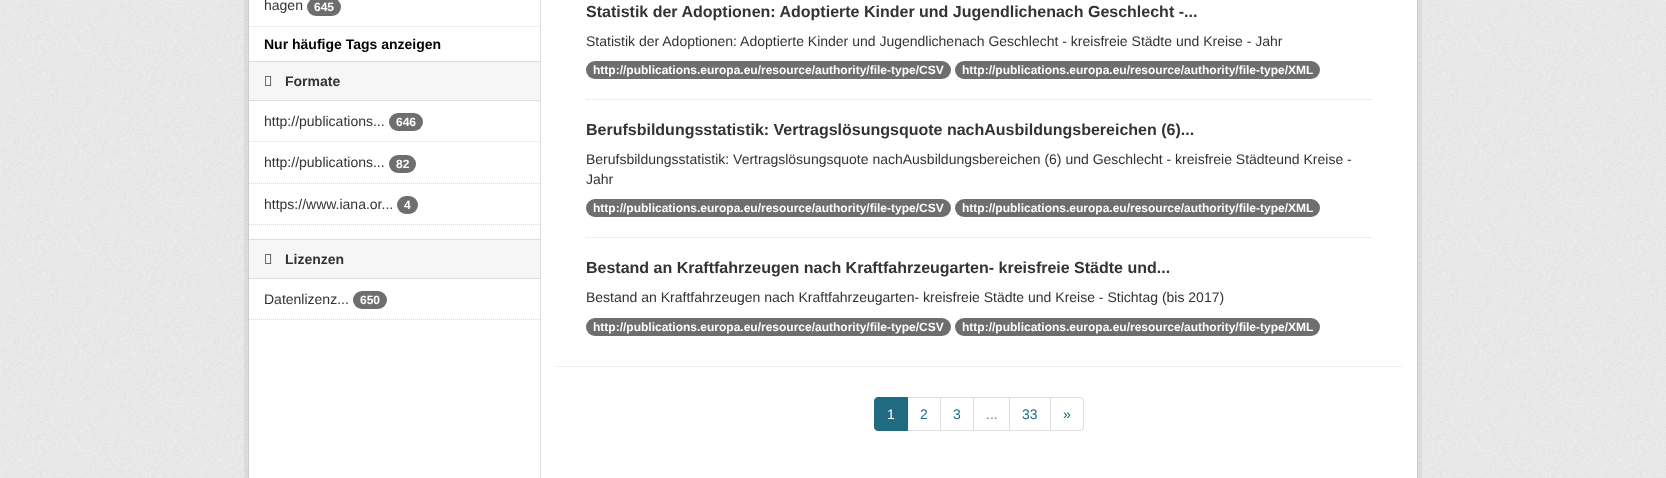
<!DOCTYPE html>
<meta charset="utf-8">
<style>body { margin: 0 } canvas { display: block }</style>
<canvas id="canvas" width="1666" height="478"></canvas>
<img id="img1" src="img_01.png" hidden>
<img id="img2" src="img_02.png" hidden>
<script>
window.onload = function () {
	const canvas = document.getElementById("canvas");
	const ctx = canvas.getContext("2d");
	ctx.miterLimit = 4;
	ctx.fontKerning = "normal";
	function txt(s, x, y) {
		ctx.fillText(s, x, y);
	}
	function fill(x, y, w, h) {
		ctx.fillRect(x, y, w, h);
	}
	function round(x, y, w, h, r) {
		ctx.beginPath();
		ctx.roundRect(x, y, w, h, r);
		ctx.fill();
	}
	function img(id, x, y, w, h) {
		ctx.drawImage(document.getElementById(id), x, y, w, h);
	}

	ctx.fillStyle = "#EEEEEE";
	fill(0, 0, 1666, 478);
	img("img1", 0, 0, 1666, 478);
	ctx.strokeStyle = "rgba(0, 0, 0, 0.05)";
	ctx.lineWidth = 4;
	ctx.strokeRect(246, -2, 1174, 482);
	ctx.fillStyle = "#FFFFFF";
	ctx.beginPath();
	ctx.rect(248.5, -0.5, 1169, 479);
	ctx.fill();
	ctx.strokeStyle = "#CCCCCC";
	ctx.lineWidth = 1;
	ctx.stroke();
	ctx.fillStyle = "#6E6E6E";
	round(307, -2, 34, 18, 9);
	ctx.beginPath();
	ctx.moveTo(249, 26.5);
	ctx.lineTo(540, 26.5);
	ctx.strokeStyle = "#DDDDDD";
	ctx.setLineDash([1, 1]);
	ctx.stroke();
	ctx.fillStyle = "#F6F6F6";
	fill(249, 62, 291, 38);
	ctx.fillStyle = "#DDDDDD";
	fill(249, 61, 291, 1);
	fill(249, 100, 291, 1);
	img("img2", 265, 76, 7, 10);
	ctx.beginPath();
	ctx.moveTo(249, 141.5);
	ctx.lineTo(540, 141.5);
	ctx.stroke();
	ctx.fillStyle = "#6E6E6E";
	round(389, 113, 34, 18, 9);
	ctx.beginPath();
	ctx.moveTo(249, 183.5);
	ctx.lineTo(540, 183.5);
	ctx.stroke();
	round(389, 155, 27, 18, 9);
	round(397, 196, 21, 18, 9);
	ctx.beginPath();
	ctx.moveTo(249, 224.5);
	ctx.lineTo(540, 224.5);
	ctx.stroke();
	ctx.fillStyle = "#F6F6F6";
	fill(249, 240, 291, 38);
	ctx.fillStyle = "#DDDDDD";
	fill(249, 239, 291, 1);
	fill(249, 278, 291, 1);
	img("img2", 265, 254, 7, 10);
	ctx.fillStyle = "#6E6E6E";
	round(353, 291, 34, 18, 9);
	ctx.beginPath();
	ctx.moveTo(249, 319.5);
	ctx.lineTo(540, 319.5);
	ctx.stroke();
	ctx.fillStyle = "#DDDDDD";
	fill(540, 0, 1, 478);
	ctx.beginPath();
	ctx.moveTo(586, 99.5);
	ctx.lineTo(1372, 99.5);
	ctx.stroke();
	ctx.fillStyle = "#6E6E6E";
	round(586, 61, 365, 18, 9);
	round(955, 61, 365, 18, 9);
	ctx.beginPath();
	ctx.moveTo(586, 237.5);
	ctx.lineTo(1372, 237.5);
	ctx.stroke();
	round(586, 199, 365, 18, 9);
	round(955, 199, 365, 18, 9);
	round(586, 318, 365, 18, 9);
	round(955, 318, 365, 18, 9);
	ctx.fillStyle = "#EEEEEE";
	fill(556, 366, 846, 1);
	ctx.setLineDash([]);
	ctx.strokeRect(907.5, 397.5, 33, 33);
	ctx.fillStyle = "#206B82";
	ctx.beginPath();
	ctx.roundRect(874.5, 397.5, 33, 33, [3.5, 0, 0, 3.5]);
	ctx.fill();
	ctx.strokeStyle = "#206B82";
	ctx.stroke();
	ctx.strokeStyle = "#DDDDDD";
	ctx.strokeRect(940.5, 397.5, 33, 33);
	ctx.strokeRect(973.5, 397.5, 36, 33);
	ctx.strokeRect(1009.5, 397.5, 41, 33);
	ctx.fillStyle = "#FFFFFF";
	ctx.beginPath();
	ctx.roundRect(1050.5, 397.5, 33, 33, [0, 3.5, 3.5, 0]);
	ctx.fill();
	ctx.stroke();
	ctx.font = "14px Liberation Sans";
	ctx.fillStyle = "#333333";
	txt("hagen", 264, 10);
	ctx.font = "bold 12px Liberation Sans";
	ctx.fillStyle = "#FFFFFF";
	txt("645", 314, 11);
	ctx.font = "bold 14px Liberation Sans";
	ctx.fillStyle = "#000000";
	txt("Nur häufige Tags anzeigen", 264, 49);
	ctx.fillStyle = "#333333";
	txt("Formate", 285, 86);
	ctx.font = "14px Liberation Sans";
	txt("http://publications...", 264, 126);
	ctx.font = "bold 12px Liberation Sans";
	ctx.fillStyle = "#FFFFFF";
	txt("646", 396, 126);
	ctx.font = "14px Liberation Sans";
	ctx.fillStyle = "#333333";
	txt("http://publications...", 264, 167);
	ctx.font = "bold 12px Liberation Sans";
	ctx.fillStyle = "#FFFFFF";
	txt("82", 396, 168);
	ctx.font = "14px Liberation Sans";
	ctx.fillStyle = "#333333";
	txt("https://www.iana.or...", 264, 209);
	ctx.font = "bold 12px Liberation Sans";
	ctx.fillStyle = "#FFFFFF";
	txt("4", 404, 209);
	ctx.font = "bold 14px Liberation Sans";
	ctx.fillStyle = "#333333";
	txt("Lizenzen", 285, 264);
	ctx.font = "14px Liberation Sans";
	txt("Datenlizenz...", 264, 304);
	ctx.font = "bold 12px Liberation Sans";
	ctx.fillStyle = "#FFFFFF";
	txt("650", 360, 304);
	ctx.font = "bold 16px Liberation Sans";
	ctx.fillStyle = "#333333";
	txt("Statistik der Adoptionen: Adoptierte Kinder und Jugendlichenach Geschlecht -...", 586, 17);
	ctx.font = "14px Liberation Sans";
	txt("Statistik der Adoptionen: Adoptierte Kinder und Jugendlichenach Geschlecht - kreisfreie Städte und Kreise - Jahr", 586, 46);
	ctx.font = "bold 12px Liberation Sans";
	ctx.fillStyle = "#FFFFFF";
	txt("http://publications.europa.eu/resource/authority/file-type/CSV", 593, 74);
	txt("http://publications.europa.eu/resource/authority/file-type/XML", 962, 74);
	ctx.font = "bold 16px Liberation Sans";
	ctx.fillStyle = "#333333";
	txt("Berufsbildungsstatistik: Vertragslösungsquote nachAusbildungsbereichen (6)...", 586, 135);
	ctx.font = "14px Liberation Sans";
	txt("Berufsbildungsstatistik: Vertragslösungsquote nachAusbildungsbereichen (6) und Geschlecht - kreisfreie Städteund Kreise -", 586, 164);
	txt("Jahr", 586, 184);
	ctx.font = "bold 12px Liberation Sans";
	ctx.fillStyle = "#FFFFFF";
	txt("http://publications.europa.eu/resource/authority/file-type/CSV", 593, 212);
	txt("http://publications.europa.eu/resource/authority/file-type/XML", 962, 212);
	ctx.font = "bold 16px Liberation Sans";
	ctx.fillStyle = "#333333";
	txt("Bestand an Kraftfahrzeugen nach Kraftfahrzeugarten- kreisfreie Städte und...", 586, 273);
	ctx.font = "14px Liberation Sans";
	txt("Bestand an Kraftfahrzeugen nach Kraftfahrzeugarten- kreisfreie Städte und Kreise - Stichtag (bis 2017)", 586, 302);
	ctx.font = "bold 12px Liberation Sans";
	ctx.fillStyle = "#FFFFFF";
	txt("http://publications.europa.eu/resource/authority/file-type/CSV", 593, 331);
	txt("http://publications.europa.eu/resource/authority/file-type/XML", 962, 331);
	ctx.font = "14px Liberation Sans";
	txt("1", 887, 419);
	ctx.fillStyle = "#206B82";
	txt("2", 920, 419);
	txt("3", 953, 419);
	ctx.fillStyle = "#777777";
	txt("...", 986, 419);
	ctx.fillStyle = "#206B82";
	txt("33", 1022, 419);
	txt("»", 1063, 419);
};
</script>
